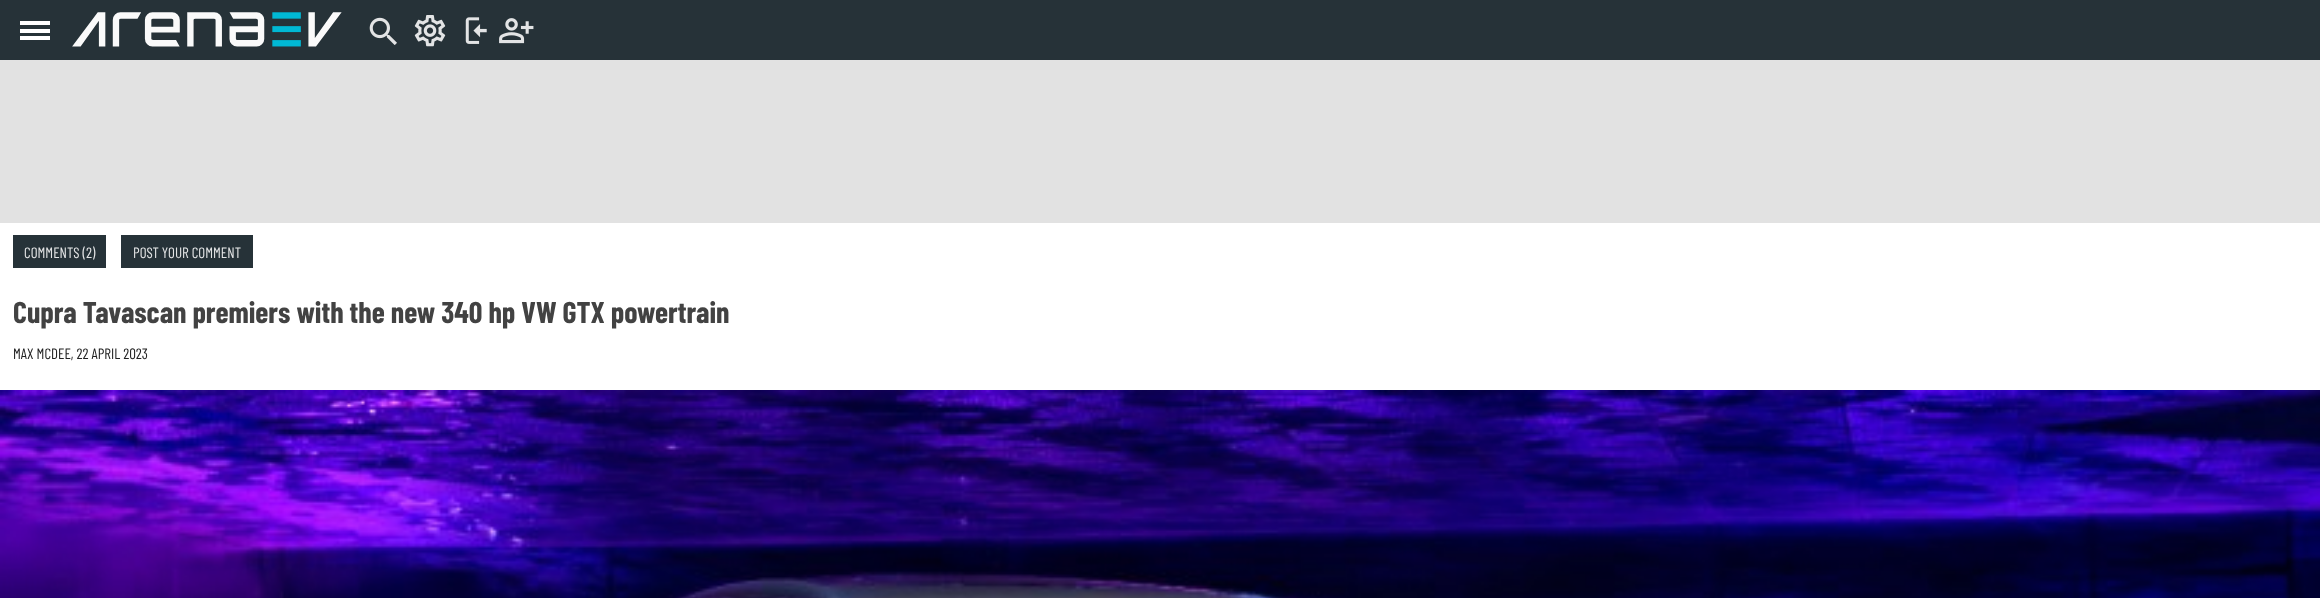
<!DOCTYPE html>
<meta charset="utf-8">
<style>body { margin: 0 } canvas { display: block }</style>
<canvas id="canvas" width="2320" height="598"></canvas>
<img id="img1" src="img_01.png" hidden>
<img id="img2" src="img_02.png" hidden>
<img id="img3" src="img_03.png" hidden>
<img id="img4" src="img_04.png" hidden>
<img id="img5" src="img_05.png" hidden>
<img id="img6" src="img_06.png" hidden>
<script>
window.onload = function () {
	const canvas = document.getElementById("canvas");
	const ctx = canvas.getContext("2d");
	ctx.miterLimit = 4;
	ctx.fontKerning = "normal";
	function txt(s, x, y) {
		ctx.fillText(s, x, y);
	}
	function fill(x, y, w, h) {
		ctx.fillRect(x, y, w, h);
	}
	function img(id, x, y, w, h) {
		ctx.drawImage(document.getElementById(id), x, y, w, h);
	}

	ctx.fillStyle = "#E2E2E2";
	fill(0, 0, 2320, 598);
	ctx.fillStyle = "#263238";
	fill(0, 0, 2320, 60);
	ctx.fillStyle = "#FFFFFF";
	fill(20, 29, 30, 4);
	fill(20, 21, 30, 4);
	fill(20, 36, 30, 4);
	img("img1", 72, 12, 270, 35);
	img("img2", 369, 17, 28, 28);
	img("img3", 414, 15, 32, 32);
	img("img4", 465, 17, 22, 27);
	img("img5", 499, 18, 35, 26);
	fill(0, 223, 2320, 57);
	ctx.fillStyle = "#263238";
	fill(13, 235, 93, 33);
	fill(121, 235, 132, 33);
	ctx.fillStyle = "#FFFFFF";
	fill(0, 280, 2320, 110);
	img("img6", 0, 390, 2320, 208);
	ctx.font = "15px Barlow Condensed";
	ctx.fillStyle = "#E3E4E5";
	txt("COMMENTS (2)", 24, 258);
	txt("POST YOUR COMMENT", 133, 258);
	ctx.font = "bold 30px Barlow Condensed";
	ctx.fillStyle = "#424242";
	txt("Cupra Tavascan premiers with the new 340 hp VW GTX powertrain", 13, 323);
	ctx.font = "15px Barlow Condensed";
	ctx.fillStyle = "#212121";
	txt("MAX MCDEE, 22 APRIL 2023", 13, 359);
};
</script>
